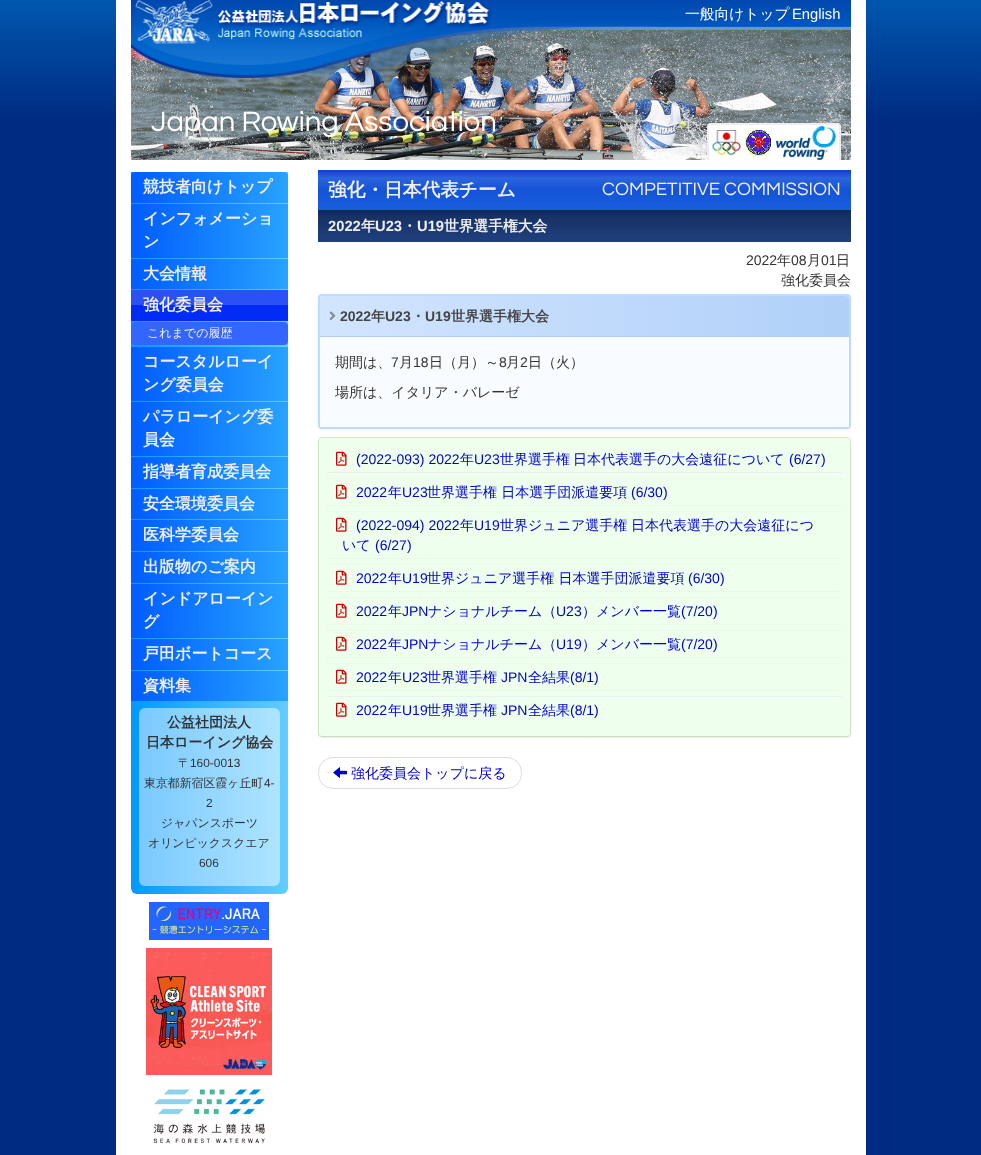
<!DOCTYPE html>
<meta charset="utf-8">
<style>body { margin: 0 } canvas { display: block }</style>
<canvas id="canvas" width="981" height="1155"></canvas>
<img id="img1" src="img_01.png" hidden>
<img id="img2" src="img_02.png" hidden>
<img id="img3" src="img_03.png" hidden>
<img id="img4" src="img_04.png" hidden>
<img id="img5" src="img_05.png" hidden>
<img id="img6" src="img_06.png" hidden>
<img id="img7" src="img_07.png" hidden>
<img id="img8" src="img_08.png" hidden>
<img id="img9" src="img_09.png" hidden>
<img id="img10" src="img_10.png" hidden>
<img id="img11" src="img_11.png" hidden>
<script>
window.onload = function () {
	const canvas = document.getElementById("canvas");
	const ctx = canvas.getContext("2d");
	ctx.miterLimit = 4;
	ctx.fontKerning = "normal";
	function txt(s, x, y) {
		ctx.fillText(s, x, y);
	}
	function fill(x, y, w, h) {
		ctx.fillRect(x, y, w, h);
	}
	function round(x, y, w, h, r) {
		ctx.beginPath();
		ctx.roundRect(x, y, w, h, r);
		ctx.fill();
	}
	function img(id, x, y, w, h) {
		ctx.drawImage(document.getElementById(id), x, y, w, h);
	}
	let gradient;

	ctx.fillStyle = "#FFFFFF";
	fill(0, 0, 981, 1155);
	gradient = ctx.createLinearGradient(490, 0, 491, 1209);
	gradient.addColorStop(0, "#0057AE");
	gradient.addColorStop(0.1, "#002B82");
	gradient.addColorStop(1, "#002B82");
	ctx.fillStyle = gradient;
	fill(0, 0, 981, 1155);
	ctx.fillStyle = "#FFFFFF";
	fill(116, 0, 750, 1155);
	img("img1", 131, 29, 720, 131);
	img("img2", 131, 0, 720, 78);
	ctx.beginPath();
	ctx.roundRect(707, 123, 134, 37, [4, 4, 0, 0]);
	ctx.fill();
	ctx.fillStyle = "#EEEEEE";
	ctx.beginPath();
	ctx.moveTo(711, 123);
	ctx.lineTo(837, 123);
	ctx.bezierCurveTo(839, 123, 841, 125, 841, 127);
	ctx.lineTo(841, 160);
	ctx.lineTo(707, 160);
	ctx.lineTo(707, 127);
	ctx.bezierCurveTo(707, 125, 709, 123, 711, 123);
	ctx.closePath();
	ctx.moveTo(711, 125);
	ctx.lineTo(837, 125);
	ctx.bezierCurveTo(838, 125, 839, 126, 839, 127);
	ctx.lineTo(839, 160);
	ctx.lineTo(709, 160);
	ctx.lineTo(709, 127);
	ctx.bezierCurveTo(709, 126, 710, 125, 711, 125);
	ctx.closePath();
	ctx.fill("evenodd");
	img("img3", 712, 130, 29, 26);
	img("img4", 745, 130, 27, 26);
	img("img5", 776, 126, 60, 34);
	ctx.fillStyle = "rgba(0, 0, 0, 0.07)";
	ctx.filter = "blur(1px)";
	ctx.beginPath();
	ctx.rect(131, 173, 157, 529);
	ctx.fill();
	ctx.filter = "none";
	gradient = ctx.createLinearGradient(131, 437, 288, 437);
	gradient.addColorStop(0, "#029AFF");
	gradient.addColorStop(1, "#64CCFF");
	ctx.fillStyle = gradient;
	fill(131, 172, 157, 499);
	gradient = ctx.createLinearGradient(131, 188, 288, 188);
	gradient.addColorStop(0, "#005CFF");
	gradient.addColorStop(1, "#28A3FF");
	ctx.fillStyle = gradient;
	ctx.beginPath();
	ctx.roundRect(131, 172, 157, 31, [4, 4, 0, 0]);
	ctx.fill();
	gradient = ctx.createLinearGradient(131, 231, 288, 231);
	gradient.addColorStop(0, "#005CFF");
	gradient.addColorStop(1, "#28A3FF");
	ctx.fillStyle = gradient;
	fill(131, 204, 157, 54);
	gradient = ctx.createLinearGradient(131, 274, 288, 274);
	gradient.addColorStop(0, "#005CFF");
	gradient.addColorStop(1, "#28A3FF");
	ctx.fillStyle = gradient;
	fill(131, 259, 157, 30);
	gradient = ctx.createLinearGradient(210, 290, 210, 321);
	gradient.addColorStop(0, "#2A51F4");
	gradient.addColorStop(0.5, "#2B50F6");
	gradient.addColorStop(0.5, "#012CF4");
	gradient.addColorStop(1, "#012CF4");
	ctx.fillStyle = gradient;
	fill(131, 290, 157, 31);
	ctx.fillStyle = "#3366FF";
	round(131, 322, 157, 23, 4);
	gradient = ctx.createLinearGradient(131, 374, 288, 374);
	gradient.addColorStop(0, "#005CFF");
	gradient.addColorStop(1, "#28A3FF");
	ctx.fillStyle = gradient;
	fill(131, 347, 157, 54);
	gradient = ctx.createLinearGradient(131, 429, 288, 429);
	gradient.addColorStop(0, "#005CFF");
	gradient.addColorStop(1, "#28A3FF");
	ctx.fillStyle = gradient;
	fill(131, 402, 157, 54);
	gradient = ctx.createLinearGradient(131, 473, 288, 473);
	gradient.addColorStop(0, "#005CFF");
	gradient.addColorStop(1, "#28A3FF");
	ctx.fillStyle = gradient;
	fill(131, 457, 157, 31);
	gradient = ctx.createLinearGradient(131, 504, 288, 504);
	gradient.addColorStop(0, "#005CFF");
	gradient.addColorStop(1, "#28A3FF");
	ctx.fillStyle = gradient;
	fill(131, 489, 157, 30);
	gradient = ctx.createLinearGradient(131, 536, 288, 536);
	gradient.addColorStop(0, "#005CFF");
	gradient.addColorStop(1, "#28A3FF");
	ctx.fillStyle = gradient;
	fill(131, 520, 157, 31);
	gradient = ctx.createLinearGradient(131, 568, 288, 568);
	gradient.addColorStop(0, "#005CFF");
	gradient.addColorStop(1, "#28A3FF");
	ctx.fillStyle = gradient;
	fill(131, 552, 157, 31);
	gradient = ctx.createLinearGradient(131, 611, 288, 611);
	gradient.addColorStop(0, "#005CFF");
	gradient.addColorStop(1, "#28A3FF");
	ctx.fillStyle = gradient;
	fill(131, 584, 157, 54);
	gradient = ctx.createLinearGradient(131, 655, 288, 655);
	gradient.addColorStop(0, "#005CFF");
	gradient.addColorStop(1, "#28A3FF");
	ctx.fillStyle = gradient;
	fill(131, 639, 157, 31);
	gradient = ctx.createLinearGradient(131, 797, 288, 797);
	gradient.addColorStop(0, "#029AFF");
	gradient.addColorStop(1, "#64CCFF");
	ctx.fillStyle = gradient;
	ctx.beginPath();
	ctx.roundRect(131, 700, 157, 194, [0, 0, 6, 6]);
	ctx.fill();
	gradient = ctx.createLinearGradient(131, 686, 288, 686);
	gradient.addColorStop(0, "#005CFF");
	gradient.addColorStop(1, "#28A3FF");
	ctx.fillStyle = gradient;
	fill(131, 671, 157, 30);
	gradient = ctx.createLinearGradient(139, 797, 280, 797);
	gradient.addColorStop(0, "#7AC9FF");
	gradient.addColorStop(1, "#AEE4FF");
	ctx.fillStyle = gradient;
	round(139, 708, 141, 178, 6);
	img("img6", 149, 902, 120, 38);
	img("img7", 146, 948, 126, 127);
	img("img8", 153, 1089, 112, 54);
	gradient = ctx.createLinearGradient(585, 170, 585, 210);
	gradient.addColorStop(0, "#0B40CD");
	gradient.addColorStop(0.2, "#2B64DB");
	gradient.addColorStop(0.5, "#1453D8");
	gradient.addColorStop(1, "#195FDE");
	ctx.fillStyle = gradient;
	fill(318, 170, 533, 40);
	gradient = ctx.createLinearGradient(585, 210, 585, 242);
	gradient.addColorStop(0, "#112857");
	gradient.addColorStop(0.2, "#173165");
	gradient.addColorStop(1, "#20407E");
	ctx.fillStyle = gradient;
	fill(318, 210, 533, 32);
	ctx.fillStyle = "rgba(0, 0, 0, 0.05)";
	ctx.filter = "blur(1px)";
	ctx.beginPath();
	ctx.roundRect(318, 295, 533, 135, 4);
	ctx.fill();
	ctx.filter = "none";
	ctx.fillStyle = "#FFFFFF";
	ctx.beginPath();
	ctx.roundRect(319, 295, 531, 133, 3);
	ctx.fill();
	ctx.strokeStyle = "#BDDAFF";
	ctx.lineWidth = 2;
	ctx.stroke();
	gradient = ctx.createLinearGradient(320, 316, 849, 316);
	gradient.addColorStop(0, "#D2E5FF");
	gradient.addColorStop(1, "#B0D0F8");
	ctx.fillStyle = gradient;
	ctx.beginPath();
	ctx.roundRect(320, 296, 529, 40, [3, 3, 0, 0]);
	ctx.fill();
	ctx.fillStyle = "#B0D0F8";
	fill(320, 336, 529, 1);
	img("img9", 329, 311, 7, 9);
	ctx.fillStyle = "#F8FCFF";
	fill(320, 337, 529, 90);
	ctx.fillStyle = "rgba(0, 0, 0, 0.05)";
	ctx.filter = "blur(1px)";
	ctx.beginPath();
	ctx.roundRect(318, 438, 533, 300, 4);
	ctx.fill();
	ctx.filter = "none";
	ctx.fillStyle = "#FFFFFF";
	ctx.beginPath();
	ctx.roundRect(318.5, 437.5, 532, 299, 3.5);
	ctx.fill();
	ctx.strokeStyle = "#D6E9C6";
	ctx.lineWidth = 1;
	ctx.stroke();
	ctx.fillStyle = "rgba(0, 0, 0, 0.07)";
	ctx.filter = "blur(1px)";
	ctx.beginPath();
	ctx.roundRect(319, 439, 531, 298, 4);
	ctx.fill();
	ctx.filter = "none";
	ctx.fillStyle = "#EEFFEE";
	round(319, 438, 531, 298, 4);
	ctx.fillStyle = "#EEEEEE";
	fill(327, 472, 515, 1);
	img("img10", 336, 451, 11, 15);
	ctx.beginPath();
	ctx.moveTo(327, 478.5);
	ctx.lineTo(842, 478.5);
	ctx.strokeStyle = "#EEEEEE";
	ctx.setLineDash([1, 1]);
	ctx.stroke();
	ctx.beginPath();
	ctx.moveTo(327, 505.5);
	ctx.lineTo(842, 505.5);
	ctx.stroke();
	img("img10", 336, 484, 11, 15);
	ctx.beginPath();
	ctx.moveTo(327, 511.5);
	ctx.lineTo(842, 511.5);
	ctx.stroke();
	ctx.beginPath();
	ctx.moveTo(327, 558.5);
	ctx.lineTo(842, 558.5);
	ctx.stroke();
	img("img10", 336, 517, 11, 15);
	ctx.beginPath();
	ctx.moveTo(327, 564.5);
	ctx.lineTo(842, 564.5);
	ctx.stroke();
	ctx.beginPath();
	ctx.moveTo(327, 591.5);
	ctx.lineTo(842, 591.5);
	ctx.stroke();
	img("img10", 336, 570, 11, 15);
	ctx.beginPath();
	ctx.moveTo(327, 597.5);
	ctx.lineTo(842, 597.5);
	ctx.stroke();
	ctx.beginPath();
	ctx.moveTo(327, 624.5);
	ctx.lineTo(842, 624.5);
	ctx.stroke();
	img("img10", 336, 603, 11, 15);
	ctx.beginPath();
	ctx.moveTo(327, 630.5);
	ctx.lineTo(842, 630.5);
	ctx.stroke();
	ctx.beginPath();
	ctx.moveTo(327, 657.5);
	ctx.lineTo(842, 657.5);
	ctx.stroke();
	img("img10", 336, 636, 11, 15);
	ctx.beginPath();
	ctx.moveTo(327, 663.5);
	ctx.lineTo(842, 663.5);
	ctx.stroke();
	ctx.beginPath();
	ctx.moveTo(327, 690.5);
	ctx.lineTo(842, 690.5);
	ctx.stroke();
	img("img10", 336, 669, 11, 15);
	fill(327, 696, 515, 1);
	img("img10", 336, 702, 11, 15);
	ctx.beginPath();
	ctx.roundRect(318.5, 757.5, 203, 31, 14.5);
	ctx.strokeStyle = "#DDDDDD";
	ctx.setLineDash([]);
	ctx.stroke();
	img("img11", 333, 767, 14, 11);
	ctx.font = "500 14.75px WenQuanYi Zen Hei";
	ctx.fillStyle = "#FFFFFF";
	txt("一般向けトップ", 685, 19);
	ctx.font = "14.75px Liberation Sans";
	txt("English", 792, 19);
	ctx.font = "29.25px Questrial";
	txt("Japan Rowing Association", 151, 131);
	ctx.font = "bold 16px WenQuanYi Zen Hei";
	ctx.fillStyle = "#EEEEEE";
	txt("競技者向けトップ", 143, 192);
	txt("インフォメーショ", 143, 224);
	txt("ン", 143, 247);
	txt("大会情報", 143, 279);
	txt("強化委員会", 143, 310);
	ctx.font = "500 12px WenQuanYi Zen Hei";
	txt("これまでの履歴", 147, 337);
	ctx.font = "bold 16px WenQuanYi Zen Hei";
	txt("コースタルローイ", 143, 367);
	txt("ング委員会", 143, 390);
	txt("パラローイング委", 143, 422);
	txt("員会", 143, 445);
	txt("指導者育成委員会", 143, 477);
	txt("安全環境委員会", 143, 509);
	txt("医科学委員会", 143, 540);
	txt("出版物のご案内", 143, 572);
	txt("インドアローイン", 143, 604);
	txt("グ", 143, 627);
	txt("戸田ボートコース", 143, 659);
	txt("資料集", 143, 691);
	ctx.font = "bold 14px WenQuanYi Zen Hei";
	ctx.fillStyle = "#333333";
	txt("公益社団法人", 167, 727);
	txt("日本ローイング協会", 146, 747);
	ctx.font = "500 11.9px WenQuanYi Zen Hei";
	txt("〒", 178, 767);
	ctx.font = "11.9px Liberation Sans";
	txt("160-0013", 190, 767);
	ctx.font = "500 11.9px WenQuanYi Zen Hei";
	txt("東京都新宿区霞ヶ丘町", 144, 787);
	ctx.font = "11.9px Liberation Sans";
	txt("4-", 264, 787);
	txt("2", 206, 807);
	ctx.font = "500 11.9px WenQuanYi Zen Hei";
	txt("ジャパンスポーツ", 161, 827);
	txt("オリンピックスクエア", 148, 847);
	ctx.font = "11.9px Liberation Sans";
	txt("606", 199, 867);
	ctx.font = "bold 18.7px WenQuanYi Zen Hei";
	ctx.fillStyle = "#EEEEEE";
	txt("強化・日本代表チーム", 328, 196);
	ctx.font = "18.7px Questrial";
	txt("COMPETITIVE COMMISSION", 602, 195);
	ctx.font = "bold 14.75px Liberation Sans";
	txt("2022", 328, 231);
	ctx.font = "bold 14.75px WenQuanYi Zen Hei";
	txt("年", 361, 231);
	ctx.font = "bold 14.75px Liberation Sans";
	txt("U23", 375, 231);
	ctx.font = "bold 14.75px WenQuanYi Zen Hei";
	txt("・", 402, 231);
	ctx.font = "bold 14.75px Liberation Sans";
	txt("U19", 417, 231);
	ctx.font = "bold 14.75px WenQuanYi Zen Hei";
	txt("世界選手権大会", 444, 231);
	ctx.font = "14px Liberation Sans";
	ctx.fillStyle = "#333333";
	txt("2022", 746, 265);
	ctx.font = "500 14px WenQuanYi Zen Hei";
	txt("年", 777, 265);
	ctx.font = "14px Liberation Sans";
	txt("08", 791, 265);
	ctx.font = "500 14px WenQuanYi Zen Hei";
	txt("月", 807, 265);
	ctx.font = "14px Liberation Sans";
	txt("01", 821, 265);
	ctx.font = "500 14px WenQuanYi Zen Hei";
	txt("日", 836, 265);
	txt("強化委員会", 781, 285);
	ctx.font = "bold 14px Liberation Sans";
	ctx.fillStyle = "#444444";
	txt("2022", 340, 321);
	ctx.font = "bold 14px WenQuanYi Zen Hei";
	txt("年", 371, 321);
	ctx.font = "bold 14px Liberation Sans";
	txt("U23", 385, 321);
	ctx.font = "bold 14px WenQuanYi Zen Hei";
	txt("・", 411, 321);
	ctx.font = "bold 14px Liberation Sans";
	txt("U19", 425, 321);
	ctx.font = "bold 14px WenQuanYi Zen Hei";
	txt("世界選手権大会", 451, 321);
	ctx.font = "500 14px WenQuanYi Zen Hei";
	ctx.fillStyle = "#333333";
	txt("期間は、", 335, 367);
	ctx.font = "14px Liberation Sans";
	txt("7", 391, 367);
	ctx.font = "500 14px WenQuanYi Zen Hei";
	txt("月", 399, 367);
	ctx.font = "14px Liberation Sans";
	txt("18", 413, 367);
	ctx.font = "500 14px WenQuanYi Zen Hei";
	txt("日（月）～", 429, 367);
	ctx.font = "14px Liberation Sans";
	txt("8", 499, 367);
	ctx.font = "500 14px WenQuanYi Zen Hei";
	txt("月", 506, 367);
	ctx.font = "14px Liberation Sans";
	txt("2", 520, 367);
	ctx.font = "500 14px WenQuanYi Zen Hei";
	txt("日（火）", 528, 367);
	txt("場所は、イタリア・バレーゼ", 335, 397);
	ctx.font = "14px Liberation Sans";
	ctx.fillStyle = "#0000CC";
	txt("(2022-093) 2022", 356, 464);
	ctx.font = "500 14px WenQuanYi Zen Hei";
	txt("年", 460, 464);
	ctx.font = "14px Liberation Sans";
	txt("U23", 474, 464);
	ctx.font = "500 14px WenQuanYi Zen Hei";
	txt("世界選手権", 500, 464);
	txt("日本代表選手の大会遠征について", 573, 464);
	ctx.font = "14px Liberation Sans";
	txt("(6/27)", 789, 464);
	txt("2022", 356, 497);
	ctx.font = "500 14px WenQuanYi Zen Hei";
	txt("年", 388, 497);
	ctx.font = "14px Liberation Sans";
	txt("U23", 402, 497);
	ctx.font = "500 14px WenQuanYi Zen Hei";
	txt("世界選手権 日本選手団派遣要項", 427, 497);
	ctx.font = "14px Liberation Sans";
	txt("(6/30)", 631, 497);
	txt("(2022-094) 2022", 356, 530);
	ctx.font = "500 14px WenQuanYi Zen Hei";
	txt("年", 460, 530);
	ctx.font = "14px Liberation Sans";
	txt("U19", 474, 530);
	ctx.font = "500 14px WenQuanYi Zen Hei";
	txt("世界ジュニア選手権", 500, 530);
	txt("日本代表選手の大会遠征につ", 631, 530);
	txt("いて", 342, 550);
	ctx.font = "14px Liberation Sans";
	txt("(6/27)", 375, 550);
	txt("2022", 356, 583);
	ctx.font = "500 14px WenQuanYi Zen Hei";
	txt("年", 388, 583);
	ctx.font = "14px Liberation Sans";
	txt("U19", 402, 583);
	ctx.font = "500 14px WenQuanYi Zen Hei";
	txt("世界ジュニア選手権 日本選手団派遣要項", 427, 583);
	ctx.font = "14px Liberation Sans";
	txt("(6/30)", 688, 583);
	txt("2022", 356, 616);
	ctx.font = "500 14px WenQuanYi Zen Hei";
	txt("年", 388, 616);
	ctx.font = "14px Liberation Sans";
	txt("JPN", 402, 616);
	ctx.font = "500 14px WenQuanYi Zen Hei";
	txt("ナショナルチーム（", 428, 616);
	ctx.font = "14px Liberation Sans";
	txt("U23", 556, 616);
	ctx.font = "500 14px WenQuanYi Zen Hei";
	txt("）メンバー一覧", 582, 616);
	ctx.font = "14px Liberation Sans";
	txt("(7/20)", 681, 616);
	txt("2022", 356, 649);
	ctx.font = "500 14px WenQuanYi Zen Hei";
	txt("年", 388, 649);
	ctx.font = "14px Liberation Sans";
	txt("JPN", 402, 649);
	ctx.font = "500 14px WenQuanYi Zen Hei";
	txt("ナショナルチーム（", 428, 649);
	ctx.font = "14px Liberation Sans";
	txt("U19", 556, 649);
	ctx.font = "500 14px WenQuanYi Zen Hei";
	txt("）メンバー一覧", 582, 649);
	ctx.font = "14px Liberation Sans";
	txt("(7/20)", 681, 649);
	txt("2022", 356, 682);
	ctx.font = "500 14px WenQuanYi Zen Hei";
	txt("年", 388, 682);
	ctx.font = "14px Liberation Sans";
	txt("U23", 402, 682);
	ctx.font = "500 14px WenQuanYi Zen Hei";
	txt("世界選手権", 427, 682);
	ctx.font = "14px Liberation Sans";
	txt("JPN", 501, 682);
	ctx.font = "500 14px WenQuanYi Zen Hei";
	txt("全結果", 528, 682);
	ctx.font = "14px Liberation Sans";
	txt("(8/1)", 570, 682);
	txt("2022", 356, 715);
	ctx.font = "500 14px WenQuanYi Zen Hei";
	txt("年", 388, 715);
	ctx.font = "14px Liberation Sans";
	txt("U19", 402, 715);
	ctx.font = "500 14px WenQuanYi Zen Hei";
	txt("世界選手権", 427, 715);
	ctx.font = "14px Liberation Sans";
	txt("JPN", 501, 715);
	ctx.font = "500 14px WenQuanYi Zen Hei";
	txt("全結果", 528, 715);
	ctx.font = "14px Liberation Sans";
	txt("(8/1)", 570, 715);
	ctx.font = "500 14px WenQuanYi Zen Hei";
	txt("強化委員会トップに戻る", 351, 778);
};
</script>
